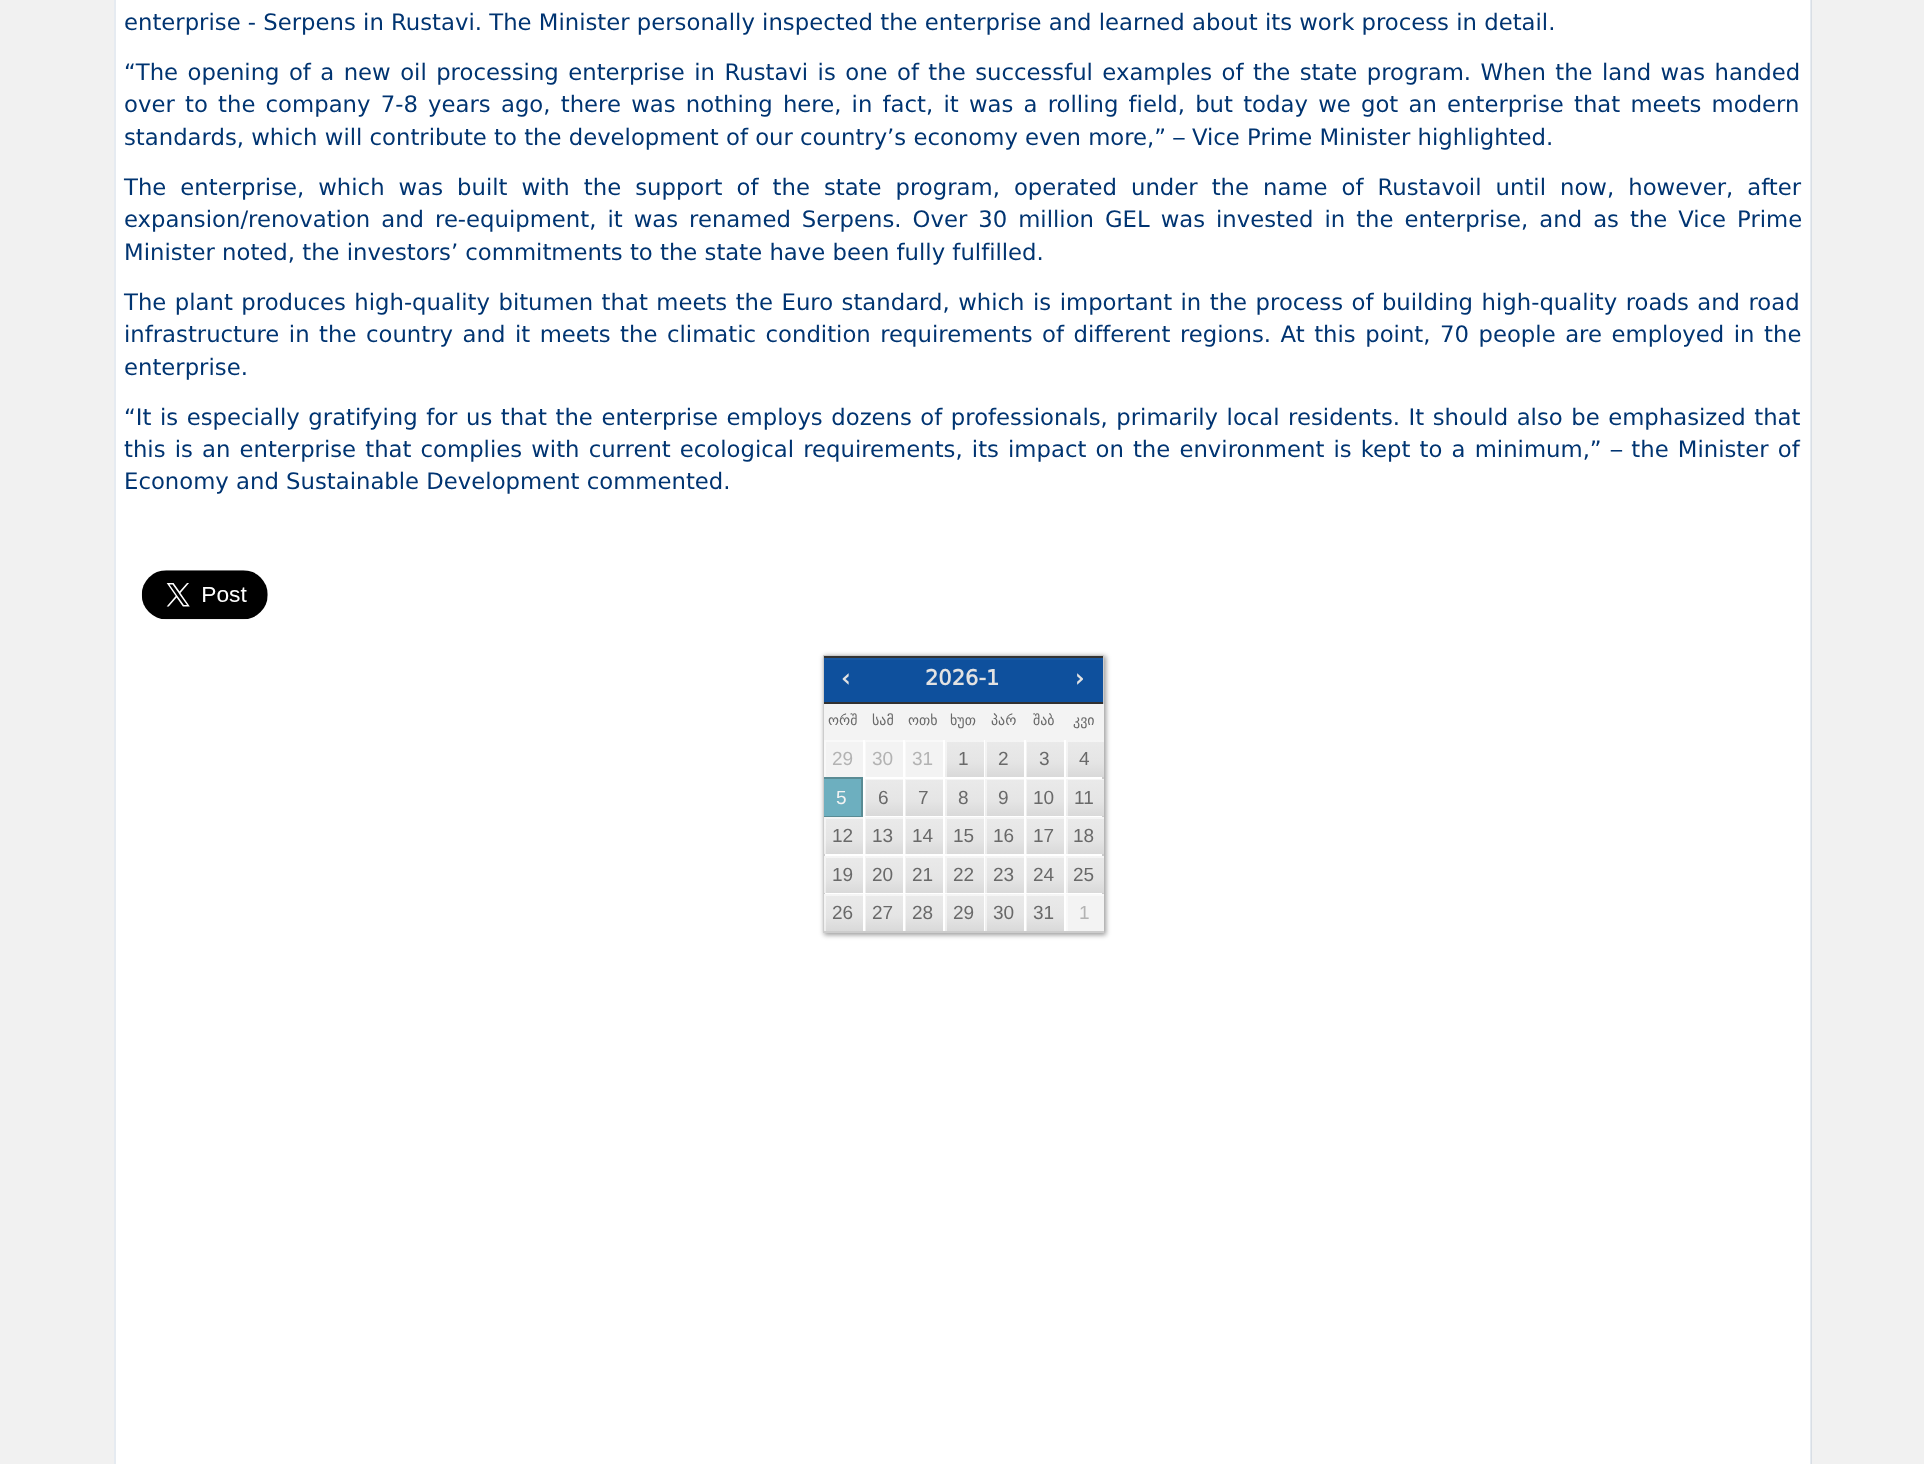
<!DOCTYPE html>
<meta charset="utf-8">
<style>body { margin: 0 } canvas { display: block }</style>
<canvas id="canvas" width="1924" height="1464"></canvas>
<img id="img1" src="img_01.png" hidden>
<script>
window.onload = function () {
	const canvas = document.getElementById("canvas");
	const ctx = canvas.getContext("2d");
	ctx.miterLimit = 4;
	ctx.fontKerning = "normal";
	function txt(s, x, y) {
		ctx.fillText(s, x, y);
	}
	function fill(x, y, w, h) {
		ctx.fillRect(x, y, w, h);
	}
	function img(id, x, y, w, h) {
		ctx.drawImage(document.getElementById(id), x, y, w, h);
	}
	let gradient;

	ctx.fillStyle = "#F1F1F1";
	fill(0, 0, 1924, 1464);
	ctx.fillStyle = "#D9DEE4";
	fill(1811, 0, 1, 1464);
	ctx.fillStyle = "#FFFFFF";
	fill(116, 0, 1694, 1464);
	ctx.fillStyle = "#E6EBF1";
	fill(1810, 0, 1, 1464);
	fill(114, 0, 2, 1464);
	img("img1", 141, 570, 127, 50);
	ctx.fillStyle = "rgba(0, 0, 0, 0.4)";
	ctx.filter = "blur(2.5px)";
	ctx.beginPath();
	ctx.rect(824, 656, 282, 279);
	ctx.fill();
	ctx.filter = "none";
	ctx.fillStyle = "#FFFFFF";
	fill(825, 740, 277, 191);
	ctx.strokeStyle = "#CCCCCC";
	ctx.lineWidth = 2;
	ctx.strokeRect(824, 656, 279, 276);
	ctx.fillStyle = "#0E509D";
	fill(824, 660, 279, 42);
	ctx.fillStyle = "#1857A1";
	fill(824, 658, 279, 2);
	ctx.fillStyle = "#333333";
	fill(824, 656, 279, 2);
	ctx.fillStyle = "#313131";
	fill(824, 702, 279, 2);
	ctx.fillStyle = "#F3F3F3";
	fill(824, 704, 280, 36);
	fill(826, 742, 37, 35);
	ctx.save();
	ctx.beginPath();
	ctx.rect(824, 740, 39, 37);
	ctx.clip();
	ctx.fillStyle = "#F9F9F9";
	ctx.beginPath();
	ctx.moveTo(651, 567);
	ctx.lineTo(1036, 567);
	ctx.lineTo(1036, 950);
	ctx.lineTo(651, 950);
	ctx.closePath();
	ctx.moveTo(826, 742);
	ctx.lineTo(864, 742);
	ctx.lineTo(864, 779);
	ctx.lineTo(826, 779);
	ctx.closePath();
	ctx.fill("evenodd");
	ctx.restore();
	fill(866, 742, 37, 35);
	ctx.save();
	ctx.beginPath();
	ctx.rect(865, 740, 38, 37);
	ctx.clip();
	ctx.fillStyle = "#F9F9F9";
	ctx.beginPath();
	ctx.moveTo(691, 567);
	ctx.lineTo(1076, 567);
	ctx.lineTo(1076, 950);
	ctx.lineTo(691, 950);
	ctx.closePath();
	ctx.moveTo(866, 742);
	ctx.lineTo(905, 742);
	ctx.lineTo(905, 779);
	ctx.lineTo(866, 779);
	ctx.closePath();
	ctx.fill("evenodd");
	ctx.restore();
	fill(906, 742, 37, 35);
	ctx.save();
	ctx.beginPath();
	ctx.rect(905, 740, 38, 37);
	ctx.clip();
	ctx.fillStyle = "#F9F9F9";
	ctx.beginPath();
	ctx.moveTo(732, 567);
	ctx.lineTo(1116, 567);
	ctx.lineTo(1116, 950);
	ctx.lineTo(732, 950);
	ctx.closePath();
	ctx.moveTo(906, 742);
	ctx.lineTo(945, 742);
	ctx.lineTo(945, 779);
	ctx.lineTo(906, 779);
	ctx.closePath();
	ctx.fill("evenodd");
	ctx.restore();
	gradient = ctx.createLinearGradient(964, 740, 964, 777);
	gradient.addColorStop(0, "#EAEAEA");
	gradient.addColorStop(0.6, "#E5E5E5");
	gradient.addColorStop(1, "#D9D9D9");
	ctx.fillStyle = gradient;
	fill(945, 740, 39, 37);
	ctx.save();
	ctx.beginPath();
	ctx.rect(945, 740, 39, 37);
	ctx.clip();
	ctx.fillStyle = "rgba(255, 255, 255, 0.5)";
	ctx.beginPath();
	ctx.moveTo(772, 567);
	ctx.lineTo(1157, 567);
	ctx.lineTo(1157, 950);
	ctx.lineTo(772, 950);
	ctx.closePath();
	ctx.moveTo(947, 742);
	ctx.lineTo(985, 742);
	ctx.lineTo(985, 779);
	ctx.lineTo(947, 779);
	ctx.closePath();
	ctx.fill("evenodd");
	ctx.restore();
	gradient = ctx.createLinearGradient(1005, 740, 1005, 777);
	gradient.addColorStop(0, "#EAEAEA");
	gradient.addColorStop(0.6, "#E5E5E5");
	gradient.addColorStop(1, "#D9D9D9");
	ctx.fillStyle = gradient;
	fill(985, 740, 39, 37);
	ctx.save();
	ctx.beginPath();
	ctx.rect(985, 740, 39, 37);
	ctx.clip();
	ctx.fillStyle = "rgba(255, 255, 255, 0.5)";
	ctx.beginPath();
	ctx.moveTo(812, 567);
	ctx.lineTo(1197, 567);
	ctx.lineTo(1197, 950);
	ctx.lineTo(812, 950);
	ctx.closePath();
	ctx.moveTo(987, 742);
	ctx.lineTo(1026, 742);
	ctx.lineTo(1026, 779);
	ctx.lineTo(987, 779);
	ctx.closePath();
	ctx.fill("evenodd");
	ctx.restore();
	gradient = ctx.createLinearGradient(1045, 740, 1045, 777);
	gradient.addColorStop(0, "#EAEAEA");
	gradient.addColorStop(0.6, "#E5E5E5");
	gradient.addColorStop(1, "#D9D9D9");
	ctx.fillStyle = gradient;
	fill(1026, 740, 38, 37);
	ctx.save();
	ctx.beginPath();
	ctx.rect(1026, 740, 38, 37);
	ctx.clip();
	ctx.fillStyle = "rgba(255, 255, 255, 0.5)";
	ctx.beginPath();
	ctx.moveTo(852, 567);
	ctx.lineTo(1237, 567);
	ctx.lineTo(1237, 950);
	ctx.lineTo(852, 950);
	ctx.closePath();
	ctx.moveTo(1027, 742);
	ctx.lineTo(1066, 742);
	ctx.lineTo(1066, 779);
	ctx.lineTo(1027, 779);
	ctx.closePath();
	ctx.fill("evenodd");
	ctx.restore();
	gradient = ctx.createLinearGradient(1085, 740, 1085, 777);
	gradient.addColorStop(0, "#EAEAEA");
	gradient.addColorStop(0.6, "#E5E5E5");
	gradient.addColorStop(1, "#D9D9D9");
	ctx.fillStyle = gradient;
	fill(1066, 740, 38, 37);
	ctx.save();
	ctx.beginPath();
	ctx.rect(1066, 740, 38, 37);
	ctx.clip();
	ctx.fillStyle = "rgba(255, 255, 255, 0.5)";
	ctx.beginPath();
	ctx.moveTo(892, 567);
	ctx.lineTo(1278, 567);
	ctx.lineTo(1278, 950);
	ctx.lineTo(892, 950);
	ctx.closePath();
	ctx.moveTo(1068, 742);
	ctx.lineTo(1106, 742);
	ctx.lineTo(1106, 779);
	ctx.lineTo(1068, 779);
	ctx.closePath();
	ctx.fill("evenodd");
	ctx.restore();
	ctx.fillStyle = "#6DAFBF";
	fill(824, 779, 37, 37);
	ctx.fillStyle = "#598B94";
	fill(824, 777, 39, 2);
	fill(861, 777, 2, 40);
	fill(824, 816, 39, 1);
	gradient = ctx.createLinearGradient(884, 779, 884, 816);
	gradient.addColorStop(0, "#EAEAEA");
	gradient.addColorStop(0.6, "#E5E5E5");
	gradient.addColorStop(1, "#D9D9D9");
	ctx.fillStyle = gradient;
	fill(865, 779, 38, 37);
	ctx.save();
	ctx.beginPath();
	ctx.rect(865, 779, 38, 37);
	ctx.clip();
	ctx.fillStyle = "rgba(255, 255, 255, 0.5)";
	ctx.beginPath();
	ctx.moveTo(691, 606);
	ctx.lineTo(1076, 606);
	ctx.lineTo(1076, 989);
	ctx.lineTo(691, 989);
	ctx.closePath();
	ctx.moveTo(866, 780);
	ctx.lineTo(905, 780);
	ctx.lineTo(905, 817);
	ctx.lineTo(866, 817);
	ctx.closePath();
	ctx.fill("evenodd");
	ctx.restore();
	gradient = ctx.createLinearGradient(924, 779, 924, 816);
	gradient.addColorStop(0, "#EAEAEA");
	gradient.addColorStop(0.6, "#E5E5E5");
	gradient.addColorStop(1, "#D9D9D9");
	ctx.fillStyle = gradient;
	fill(905, 779, 38, 37);
	ctx.save();
	ctx.beginPath();
	ctx.rect(905, 779, 38, 37);
	ctx.clip();
	ctx.fillStyle = "rgba(255, 255, 255, 0.5)";
	ctx.beginPath();
	ctx.moveTo(732, 606);
	ctx.lineTo(1116, 606);
	ctx.lineTo(1116, 989);
	ctx.lineTo(732, 989);
	ctx.closePath();
	ctx.moveTo(906, 780);
	ctx.lineTo(945, 780);
	ctx.lineTo(945, 817);
	ctx.lineTo(906, 817);
	ctx.closePath();
	ctx.fill("evenodd");
	ctx.restore();
	gradient = ctx.createLinearGradient(964, 779, 964, 816);
	gradient.addColorStop(0, "#EAEAEA");
	gradient.addColorStop(0.6, "#E5E5E5");
	gradient.addColorStop(1, "#D9D9D9");
	ctx.fillStyle = gradient;
	fill(945, 779, 39, 37);
	ctx.save();
	ctx.beginPath();
	ctx.rect(945, 779, 39, 37);
	ctx.clip();
	ctx.fillStyle = "rgba(255, 255, 255, 0.5)";
	ctx.beginPath();
	ctx.moveTo(772, 606);
	ctx.lineTo(1157, 606);
	ctx.lineTo(1157, 989);
	ctx.lineTo(772, 989);
	ctx.closePath();
	ctx.moveTo(947, 780);
	ctx.lineTo(985, 780);
	ctx.lineTo(985, 817);
	ctx.lineTo(947, 817);
	ctx.closePath();
	ctx.fill("evenodd");
	ctx.restore();
	gradient = ctx.createLinearGradient(1005, 779, 1005, 816);
	gradient.addColorStop(0, "#EAEAEA");
	gradient.addColorStop(0.6, "#E5E5E5");
	gradient.addColorStop(1, "#D9D9D9");
	ctx.fillStyle = gradient;
	fill(985, 779, 39, 37);
	ctx.save();
	ctx.beginPath();
	ctx.rect(985, 779, 39, 37);
	ctx.clip();
	ctx.fillStyle = "rgba(255, 255, 255, 0.5)";
	ctx.beginPath();
	ctx.moveTo(812, 606);
	ctx.lineTo(1197, 606);
	ctx.lineTo(1197, 989);
	ctx.lineTo(812, 989);
	ctx.closePath();
	ctx.moveTo(987, 780);
	ctx.lineTo(1026, 780);
	ctx.lineTo(1026, 817);
	ctx.lineTo(987, 817);
	ctx.closePath();
	ctx.fill("evenodd");
	ctx.restore();
	gradient = ctx.createLinearGradient(1045, 779, 1045, 816);
	gradient.addColorStop(0, "#EAEAEA");
	gradient.addColorStop(0.6, "#E5E5E5");
	gradient.addColorStop(1, "#D9D9D9");
	ctx.fillStyle = gradient;
	fill(1026, 779, 38, 37);
	ctx.save();
	ctx.beginPath();
	ctx.rect(1026, 779, 38, 37);
	ctx.clip();
	ctx.fillStyle = "rgba(255, 255, 255, 0.5)";
	ctx.beginPath();
	ctx.moveTo(852, 606);
	ctx.lineTo(1237, 606);
	ctx.lineTo(1237, 989);
	ctx.lineTo(852, 989);
	ctx.closePath();
	ctx.moveTo(1027, 780);
	ctx.lineTo(1066, 780);
	ctx.lineTo(1066, 817);
	ctx.lineTo(1027, 817);
	ctx.closePath();
	ctx.fill("evenodd");
	ctx.restore();
	gradient = ctx.createLinearGradient(1085, 779, 1085, 816);
	gradient.addColorStop(0, "#EAEAEA");
	gradient.addColorStop(0.6, "#E5E5E5");
	gradient.addColorStop(1, "#D9D9D9");
	ctx.fillStyle = gradient;
	fill(1066, 779, 38, 37);
	ctx.save();
	ctx.beginPath();
	ctx.rect(1066, 779, 38, 37);
	ctx.clip();
	ctx.fillStyle = "rgba(255, 255, 255, 0.5)";
	ctx.beginPath();
	ctx.moveTo(892, 606);
	ctx.lineTo(1278, 606);
	ctx.lineTo(1278, 989);
	ctx.lineTo(892, 989);
	ctx.closePath();
	ctx.moveTo(1068, 780);
	ctx.lineTo(1106, 780);
	ctx.lineTo(1106, 817);
	ctx.lineTo(1068, 817);
	ctx.closePath();
	ctx.fill("evenodd");
	ctx.restore();
	gradient = ctx.createLinearGradient(844, 817, 844, 854);
	gradient.addColorStop(0, "#EAEAEA");
	gradient.addColorStop(0.6, "#E5E5E5");
	gradient.addColorStop(1, "#D9D9D9");
	ctx.fillStyle = gradient;
	fill(824, 817, 39, 37);
	ctx.save();
	ctx.beginPath();
	ctx.rect(824, 817, 39, 37);
	ctx.clip();
	ctx.fillStyle = "rgba(255, 255, 255, 0.5)";
	ctx.beginPath();
	ctx.moveTo(651, 644);
	ctx.lineTo(1036, 644);
	ctx.lineTo(1036, 1027);
	ctx.lineTo(651, 1027);
	ctx.closePath();
	ctx.moveTo(826, 819);
	ctx.lineTo(864, 819);
	ctx.lineTo(864, 856);
	ctx.lineTo(826, 856);
	ctx.closePath();
	ctx.fill("evenodd");
	ctx.restore();
	gradient = ctx.createLinearGradient(884, 817, 884, 854);
	gradient.addColorStop(0, "#EAEAEA");
	gradient.addColorStop(0.6, "#E5E5E5");
	gradient.addColorStop(1, "#D9D9D9");
	ctx.fillStyle = gradient;
	fill(865, 817, 38, 37);
	ctx.save();
	ctx.beginPath();
	ctx.rect(865, 817, 38, 37);
	ctx.clip();
	ctx.fillStyle = "rgba(255, 255, 255, 0.5)";
	ctx.beginPath();
	ctx.moveTo(691, 644);
	ctx.lineTo(1076, 644);
	ctx.lineTo(1076, 1027);
	ctx.lineTo(691, 1027);
	ctx.closePath();
	ctx.moveTo(866, 819);
	ctx.lineTo(905, 819);
	ctx.lineTo(905, 856);
	ctx.lineTo(866, 856);
	ctx.closePath();
	ctx.fill("evenodd");
	ctx.restore();
	gradient = ctx.createLinearGradient(924, 817, 924, 854);
	gradient.addColorStop(0, "#EAEAEA");
	gradient.addColorStop(0.6, "#E5E5E5");
	gradient.addColorStop(1, "#D9D9D9");
	ctx.fillStyle = gradient;
	fill(905, 817, 38, 37);
	ctx.save();
	ctx.beginPath();
	ctx.rect(905, 817, 38, 37);
	ctx.clip();
	ctx.fillStyle = "rgba(255, 255, 255, 0.5)";
	ctx.beginPath();
	ctx.moveTo(732, 644);
	ctx.lineTo(1116, 644);
	ctx.lineTo(1116, 1027);
	ctx.lineTo(732, 1027);
	ctx.closePath();
	ctx.moveTo(906, 819);
	ctx.lineTo(945, 819);
	ctx.lineTo(945, 856);
	ctx.lineTo(906, 856);
	ctx.closePath();
	ctx.fill("evenodd");
	ctx.restore();
	gradient = ctx.createLinearGradient(964, 817, 964, 854);
	gradient.addColorStop(0, "#EAEAEA");
	gradient.addColorStop(0.6, "#E5E5E5");
	gradient.addColorStop(1, "#D9D9D9");
	ctx.fillStyle = gradient;
	fill(945, 817, 39, 37);
	ctx.save();
	ctx.beginPath();
	ctx.rect(945, 817, 39, 37);
	ctx.clip();
	ctx.fillStyle = "rgba(255, 255, 255, 0.5)";
	ctx.beginPath();
	ctx.moveTo(772, 644);
	ctx.lineTo(1157, 644);
	ctx.lineTo(1157, 1027);
	ctx.lineTo(772, 1027);
	ctx.closePath();
	ctx.moveTo(947, 819);
	ctx.lineTo(985, 819);
	ctx.lineTo(985, 856);
	ctx.lineTo(947, 856);
	ctx.closePath();
	ctx.fill("evenodd");
	ctx.restore();
	gradient = ctx.createLinearGradient(1005, 817, 1005, 854);
	gradient.addColorStop(0, "#EAEAEA");
	gradient.addColorStop(0.6, "#E5E5E5");
	gradient.addColorStop(1, "#D9D9D9");
	ctx.fillStyle = gradient;
	fill(985, 817, 39, 37);
	ctx.save();
	ctx.beginPath();
	ctx.rect(985, 817, 39, 37);
	ctx.clip();
	ctx.fillStyle = "rgba(255, 255, 255, 0.5)";
	ctx.beginPath();
	ctx.moveTo(812, 644);
	ctx.lineTo(1197, 644);
	ctx.lineTo(1197, 1027);
	ctx.lineTo(812, 1027);
	ctx.closePath();
	ctx.moveTo(987, 819);
	ctx.lineTo(1026, 819);
	ctx.lineTo(1026, 856);
	ctx.lineTo(987, 856);
	ctx.closePath();
	ctx.fill("evenodd");
	ctx.restore();
	gradient = ctx.createLinearGradient(1045, 817, 1045, 854);
	gradient.addColorStop(0, "#EAEAEA");
	gradient.addColorStop(0.6, "#E5E5E5");
	gradient.addColorStop(1, "#D9D9D9");
	ctx.fillStyle = gradient;
	fill(1026, 817, 38, 37);
	ctx.save();
	ctx.beginPath();
	ctx.rect(1026, 817, 38, 37);
	ctx.clip();
	ctx.fillStyle = "rgba(255, 255, 255, 0.5)";
	ctx.beginPath();
	ctx.moveTo(852, 644);
	ctx.lineTo(1237, 644);
	ctx.lineTo(1237, 1027);
	ctx.lineTo(852, 1027);
	ctx.closePath();
	ctx.moveTo(1027, 819);
	ctx.lineTo(1066, 819);
	ctx.lineTo(1066, 856);
	ctx.lineTo(1027, 856);
	ctx.closePath();
	ctx.fill("evenodd");
	ctx.restore();
	gradient = ctx.createLinearGradient(1085, 817, 1085, 854);
	gradient.addColorStop(0, "#EAEAEA");
	gradient.addColorStop(0.6, "#E5E5E5");
	gradient.addColorStop(1, "#D9D9D9");
	ctx.fillStyle = gradient;
	fill(1066, 817, 38, 37);
	ctx.save();
	ctx.beginPath();
	ctx.rect(1066, 817, 38, 37);
	ctx.clip();
	ctx.fillStyle = "rgba(255, 255, 255, 0.5)";
	ctx.beginPath();
	ctx.moveTo(892, 644);
	ctx.lineTo(1278, 644);
	ctx.lineTo(1278, 1027);
	ctx.lineTo(892, 1027);
	ctx.closePath();
	ctx.moveTo(1068, 819);
	ctx.lineTo(1106, 819);
	ctx.lineTo(1106, 856);
	ctx.lineTo(1068, 856);
	ctx.closePath();
	ctx.fill("evenodd");
	ctx.restore();
	gradient = ctx.createLinearGradient(844, 856, 844, 893);
	gradient.addColorStop(0, "#EAEAEA");
	gradient.addColorStop(0.6, "#E5E5E5");
	gradient.addColorStop(1, "#D9D9D9");
	ctx.fillStyle = gradient;
	fill(824, 856, 39, 37);
	ctx.save();
	ctx.beginPath();
	ctx.rect(824, 856, 39, 37);
	ctx.clip();
	ctx.fillStyle = "rgba(255, 255, 255, 0.5)";
	ctx.beginPath();
	ctx.moveTo(651, 682);
	ctx.lineTo(1036, 682);
	ctx.lineTo(1036, 1066);
	ctx.lineTo(651, 1066);
	ctx.closePath();
	ctx.moveTo(826, 858);
	ctx.lineTo(864, 858);
	ctx.lineTo(864, 894);
	ctx.lineTo(826, 894);
	ctx.closePath();
	ctx.fill("evenodd");
	ctx.restore();
	gradient = ctx.createLinearGradient(884, 856, 884, 893);
	gradient.addColorStop(0, "#EAEAEA");
	gradient.addColorStop(0.6, "#E5E5E5");
	gradient.addColorStop(1, "#D9D9D9");
	ctx.fillStyle = gradient;
	fill(865, 856, 38, 37);
	ctx.save();
	ctx.beginPath();
	ctx.rect(865, 856, 38, 37);
	ctx.clip();
	ctx.fillStyle = "rgba(255, 255, 255, 0.5)";
	ctx.beginPath();
	ctx.moveTo(691, 682);
	ctx.lineTo(1076, 682);
	ctx.lineTo(1076, 1066);
	ctx.lineTo(691, 1066);
	ctx.closePath();
	ctx.moveTo(866, 858);
	ctx.lineTo(905, 858);
	ctx.lineTo(905, 894);
	ctx.lineTo(866, 894);
	ctx.closePath();
	ctx.fill("evenodd");
	ctx.restore();
	gradient = ctx.createLinearGradient(924, 856, 924, 893);
	gradient.addColorStop(0, "#EAEAEA");
	gradient.addColorStop(0.6, "#E5E5E5");
	gradient.addColorStop(1, "#D9D9D9");
	ctx.fillStyle = gradient;
	fill(905, 856, 38, 37);
	ctx.save();
	ctx.beginPath();
	ctx.rect(905, 856, 38, 37);
	ctx.clip();
	ctx.fillStyle = "rgba(255, 255, 255, 0.5)";
	ctx.beginPath();
	ctx.moveTo(732, 682);
	ctx.lineTo(1116, 682);
	ctx.lineTo(1116, 1066);
	ctx.lineTo(732, 1066);
	ctx.closePath();
	ctx.moveTo(906, 858);
	ctx.lineTo(945, 858);
	ctx.lineTo(945, 894);
	ctx.lineTo(906, 894);
	ctx.closePath();
	ctx.fill("evenodd");
	ctx.restore();
	gradient = ctx.createLinearGradient(964, 856, 964, 893);
	gradient.addColorStop(0, "#EAEAEA");
	gradient.addColorStop(0.6, "#E5E5E5");
	gradient.addColorStop(1, "#D9D9D9");
	ctx.fillStyle = gradient;
	fill(945, 856, 39, 37);
	ctx.save();
	ctx.beginPath();
	ctx.rect(945, 856, 39, 37);
	ctx.clip();
	ctx.fillStyle = "rgba(255, 255, 255, 0.5)";
	ctx.beginPath();
	ctx.moveTo(772, 682);
	ctx.lineTo(1157, 682);
	ctx.lineTo(1157, 1066);
	ctx.lineTo(772, 1066);
	ctx.closePath();
	ctx.moveTo(947, 858);
	ctx.lineTo(985, 858);
	ctx.lineTo(985, 894);
	ctx.lineTo(947, 894);
	ctx.closePath();
	ctx.fill("evenodd");
	ctx.restore();
	gradient = ctx.createLinearGradient(1005, 856, 1005, 893);
	gradient.addColorStop(0, "#EAEAEA");
	gradient.addColorStop(0.6, "#E5E5E5");
	gradient.addColorStop(1, "#D9D9D9");
	ctx.fillStyle = gradient;
	fill(985, 856, 39, 37);
	ctx.save();
	ctx.beginPath();
	ctx.rect(985, 856, 39, 37);
	ctx.clip();
	ctx.fillStyle = "rgba(255, 255, 255, 0.5)";
	ctx.beginPath();
	ctx.moveTo(812, 682);
	ctx.lineTo(1197, 682);
	ctx.lineTo(1197, 1066);
	ctx.lineTo(812, 1066);
	ctx.closePath();
	ctx.moveTo(987, 858);
	ctx.lineTo(1026, 858);
	ctx.lineTo(1026, 894);
	ctx.lineTo(987, 894);
	ctx.closePath();
	ctx.fill("evenodd");
	ctx.restore();
	gradient = ctx.createLinearGradient(1045, 856, 1045, 893);
	gradient.addColorStop(0, "#EAEAEA");
	gradient.addColorStop(0.6, "#E5E5E5");
	gradient.addColorStop(1, "#D9D9D9");
	ctx.fillStyle = gradient;
	fill(1026, 856, 38, 37);
	ctx.save();
	ctx.beginPath();
	ctx.rect(1026, 856, 38, 37);
	ctx.clip();
	ctx.fillStyle = "rgba(255, 255, 255, 0.5)";
	ctx.beginPath();
	ctx.moveTo(852, 682);
	ctx.lineTo(1237, 682);
	ctx.lineTo(1237, 1066);
	ctx.lineTo(852, 1066);
	ctx.closePath();
	ctx.moveTo(1027, 858);
	ctx.lineTo(1066, 858);
	ctx.lineTo(1066, 894);
	ctx.lineTo(1027, 894);
	ctx.closePath();
	ctx.fill("evenodd");
	ctx.restore();
	gradient = ctx.createLinearGradient(1085, 856, 1085, 893);
	gradient.addColorStop(0, "#EAEAEA");
	gradient.addColorStop(0.6, "#E5E5E5");
	gradient.addColorStop(1, "#D9D9D9");
	ctx.fillStyle = gradient;
	fill(1066, 856, 38, 37);
	ctx.save();
	ctx.beginPath();
	ctx.rect(1066, 856, 38, 37);
	ctx.clip();
	ctx.fillStyle = "rgba(255, 255, 255, 0.5)";
	ctx.beginPath();
	ctx.moveTo(892, 682);
	ctx.lineTo(1278, 682);
	ctx.lineTo(1278, 1066);
	ctx.lineTo(892, 1066);
	ctx.closePath();
	ctx.moveTo(1068, 858);
	ctx.lineTo(1106, 858);
	ctx.lineTo(1106, 894);
	ctx.lineTo(1068, 894);
	ctx.closePath();
	ctx.fill("evenodd");
	ctx.restore();
	gradient = ctx.createLinearGradient(844, 894, 844, 931);
	gradient.addColorStop(0, "#EAEAEA");
	gradient.addColorStop(0.6, "#E5E5E5");
	gradient.addColorStop(1, "#D9D9D9");
	ctx.fillStyle = gradient;
	fill(824, 894, 39, 37);
	ctx.save();
	ctx.beginPath();
	ctx.rect(824, 894, 39, 37);
	ctx.clip();
	ctx.fillStyle = "rgba(255, 255, 255, 0.5)";
	ctx.beginPath();
	ctx.moveTo(651, 721);
	ctx.lineTo(1036, 721);
	ctx.lineTo(1036, 1104);
	ctx.lineTo(651, 1104);
	ctx.closePath();
	ctx.moveTo(826, 896);
	ctx.lineTo(864, 896);
	ctx.lineTo(864, 933);
	ctx.lineTo(826, 933);
	ctx.closePath();
	ctx.fill("evenodd");
	ctx.restore();
	gradient = ctx.createLinearGradient(884, 894, 884, 931);
	gradient.addColorStop(0, "#EAEAEA");
	gradient.addColorStop(0.6, "#E5E5E5");
	gradient.addColorStop(1, "#D9D9D9");
	ctx.fillStyle = gradient;
	fill(865, 894, 38, 37);
	ctx.save();
	ctx.beginPath();
	ctx.rect(865, 894, 38, 37);
	ctx.clip();
	ctx.fillStyle = "rgba(255, 255, 255, 0.5)";
	ctx.beginPath();
	ctx.moveTo(691, 721);
	ctx.lineTo(1076, 721);
	ctx.lineTo(1076, 1104);
	ctx.lineTo(691, 1104);
	ctx.closePath();
	ctx.moveTo(866, 896);
	ctx.lineTo(905, 896);
	ctx.lineTo(905, 933);
	ctx.lineTo(866, 933);
	ctx.closePath();
	ctx.fill("evenodd");
	ctx.restore();
	gradient = ctx.createLinearGradient(924, 894, 924, 931);
	gradient.addColorStop(0, "#EAEAEA");
	gradient.addColorStop(0.6, "#E5E5E5");
	gradient.addColorStop(1, "#D9D9D9");
	ctx.fillStyle = gradient;
	fill(905, 894, 38, 37);
	ctx.save();
	ctx.beginPath();
	ctx.rect(905, 894, 38, 37);
	ctx.clip();
	ctx.fillStyle = "rgba(255, 255, 255, 0.5)";
	ctx.beginPath();
	ctx.moveTo(732, 721);
	ctx.lineTo(1116, 721);
	ctx.lineTo(1116, 1104);
	ctx.lineTo(732, 1104);
	ctx.closePath();
	ctx.moveTo(906, 896);
	ctx.lineTo(945, 896);
	ctx.lineTo(945, 933);
	ctx.lineTo(906, 933);
	ctx.closePath();
	ctx.fill("evenodd");
	ctx.restore();
	gradient = ctx.createLinearGradient(964, 894, 964, 931);
	gradient.addColorStop(0, "#EAEAEA");
	gradient.addColorStop(0.6, "#E5E5E5");
	gradient.addColorStop(1, "#D9D9D9");
	ctx.fillStyle = gradient;
	fill(945, 894, 39, 37);
	ctx.save();
	ctx.beginPath();
	ctx.rect(945, 894, 39, 37);
	ctx.clip();
	ctx.fillStyle = "rgba(255, 255, 255, 0.5)";
	ctx.beginPath();
	ctx.moveTo(772, 721);
	ctx.lineTo(1157, 721);
	ctx.lineTo(1157, 1104);
	ctx.lineTo(772, 1104);
	ctx.closePath();
	ctx.moveTo(947, 896);
	ctx.lineTo(985, 896);
	ctx.lineTo(985, 933);
	ctx.lineTo(947, 933);
	ctx.closePath();
	ctx.fill("evenodd");
	ctx.restore();
	gradient = ctx.createLinearGradient(1005, 894, 1005, 931);
	gradient.addColorStop(0, "#EAEAEA");
	gradient.addColorStop(0.6, "#E5E5E5");
	gradient.addColorStop(1, "#D9D9D9");
	ctx.fillStyle = gradient;
	fill(985, 894, 39, 37);
	ctx.save();
	ctx.beginPath();
	ctx.rect(985, 894, 39, 37);
	ctx.clip();
	ctx.fillStyle = "rgba(255, 255, 255, 0.5)";
	ctx.beginPath();
	ctx.moveTo(812, 721);
	ctx.lineTo(1197, 721);
	ctx.lineTo(1197, 1104);
	ctx.lineTo(812, 1104);
	ctx.closePath();
	ctx.moveTo(987, 896);
	ctx.lineTo(1026, 896);
	ctx.lineTo(1026, 933);
	ctx.lineTo(987, 933);
	ctx.closePath();
	ctx.fill("evenodd");
	ctx.restore();
	gradient = ctx.createLinearGradient(1045, 894, 1045, 931);
	gradient.addColorStop(0, "#EAEAEA");
	gradient.addColorStop(0.6, "#E5E5E5");
	gradient.addColorStop(1, "#D9D9D9");
	ctx.fillStyle = gradient;
	fill(1026, 894, 38, 37);
	ctx.save();
	ctx.beginPath();
	ctx.rect(1026, 894, 38, 37);
	ctx.clip();
	ctx.fillStyle = "rgba(255, 255, 255, 0.5)";
	ctx.beginPath();
	ctx.moveTo(852, 721);
	ctx.lineTo(1237, 721);
	ctx.lineTo(1237, 1104);
	ctx.lineTo(852, 1104);
	ctx.closePath();
	ctx.moveTo(1027, 896);
	ctx.lineTo(1066, 896);
	ctx.lineTo(1066, 933);
	ctx.lineTo(1027, 933);
	ctx.closePath();
	ctx.fill("evenodd");
	ctx.restore();
	ctx.fillStyle = "#F3F3F3";
	fill(1068, 896, 36, 35);
	ctx.save();
	ctx.beginPath();
	ctx.rect(1066, 894, 38, 37);
	ctx.clip();
	ctx.fillStyle = "#F9F9F9";
	ctx.beginPath();
	ctx.moveTo(892, 721);
	ctx.lineTo(1278, 721);
	ctx.lineTo(1278, 1104);
	ctx.lineTo(892, 1104);
	ctx.closePath();
	ctx.moveTo(1068, 896);
	ctx.lineTo(1106, 896);
	ctx.lineTo(1106, 933);
	ctx.lineTo(1068, 933);
	ctx.closePath();
	ctx.fill("evenodd");
	ctx.restore();
	ctx.font = "22.75px DejaVu Sans";
	ctx.fillStyle = "#003471";
	txt("enterprise - Serpens in Rustavi. The Minister personally inspected the enterprise and learned about its work process in detail.", 124, 30);
	ctx.wordSpacing = "2.2px";
	txt("“The opening of a new oil processing enterprise in Rustavi is one of the successful examples of the state program. When the land was handed", 124, 80);
	ctx.wordSpacing = "3px";
	txt("over to the company 7-8 years ago, there was nothing here, in fact, it was a rolling field, but today we got an enterprise that meets modern", 124, 112);
	ctx.wordSpacing = "0px";
	txt("standards, which will contribute to the development of our country’s economy even more,” – Vice Prime Minister highlighted.", 124, 145);
	ctx.wordSpacing = "6.8px";
	txt("The enterprise, which was built with the support of the state program, operated under the name of Rustavoil until now, however, after", 124, 195);
	ctx.wordSpacing = "3.75px";
	txt("expansion/renovation and re-equipment, it was renamed Serpens. Over 30 million GEL was invested in the enterprise, and as the Vice Prime", 124, 227);
	ctx.wordSpacing = "0px";
	txt("Minister noted, the investors’ commitments to the state have been fully fulfilled.", 124, 260);
	ctx.wordSpacing = "1.25px";
	txt("The plant produces high-quality bitumen that meets the Euro standard, which is important in the process of building high-quality roads and road", 124, 310);
	ctx.wordSpacing = "2.3px";
	txt("infrastructure in the country and it meets the climatic condition requirements of different regions. At this point, 70 people are employed in the", 124, 342);
	ctx.wordSpacing = "0px";
	txt("enterprise.", 124, 375);
	ctx.wordSpacing = "1.3px";
	txt("“It is especially gratifying for us that the enterprise employs dozens of professionals, primarily local residents. It should also be emphasized that", 124, 425);
	ctx.wordSpacing = "1.9px";
	txt("this is an enterprise that complies with current ecological requirements, its impact on the environment is kept to a minimum,” – the Minister of", 124, 457);
	ctx.wordSpacing = "0px";
	txt("Economy and Sustainable Development commented.", 124, 489);
	ctx.font = "bold 22.75px DejaVu Sans";
	ctx.fillStyle = "#E2E2E2";
	txt("‹", 841, 686);
	ctx.font = "bold 21px DejaVu Sans";
	txt("2026-1", 925, 685);
	ctx.font = "bold 22.75px DejaVu Sans";
	txt("›", 1075, 686);
	ctx.font = "14px 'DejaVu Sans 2'";
	ctx.fillStyle = "#696969";
	txt("ორშ", 828, 725);
	txt("სამ", 872, 725);
	txt("ოთხ", 908, 725);
	txt("ხუთ", 950, 725);
	txt("პარ", 991, 725);
	txt("შაბ", 1033, 725);
	txt("კვი", 1073, 725);
	ctx.font = "19px Liberation Sans";
	ctx.fillStyle = "#B3B3B3";
	txt("29", 832, 765);
	txt("30", 872, 765);
	txt("31", 912, 765);
	ctx.fillStyle = "#696969";
	txt("1", 958, 765);
	txt("2", 998, 765);
	txt("3", 1039, 765);
	txt("4", 1079, 765);
	ctx.fillStyle = "#F3F3F3";
	txt("5", 836, 804);
	ctx.fillStyle = "#696969";
	txt("6", 878, 804);
	txt("7", 918, 804);
	txt("8", 958, 804);
	txt("9", 998, 804);
	txt("10", 1033, 804);
	txt("11", 1074, 804);
	txt("12", 832, 842);
	txt("13", 872, 842);
	txt("14", 912, 842);
	txt("15", 953, 842);
	txt("16", 993, 842);
	txt("17", 1033, 842);
	txt("18", 1073, 842);
	txt("19", 832, 881);
	txt("20", 872, 881);
	txt("21", 912, 881);
	txt("22", 953, 881);
	txt("23", 993, 881);
	txt("24", 1033, 881);
	txt("25", 1073, 881);
	txt("26", 832, 919);
	txt("27", 872, 919);
	txt("28", 912, 919);
	txt("29", 953, 919);
	txt("30", 993, 919);
	txt("31", 1033, 919);
	ctx.fillStyle = "#B3B3B3";
	txt("1", 1079, 919);
};
</script>
